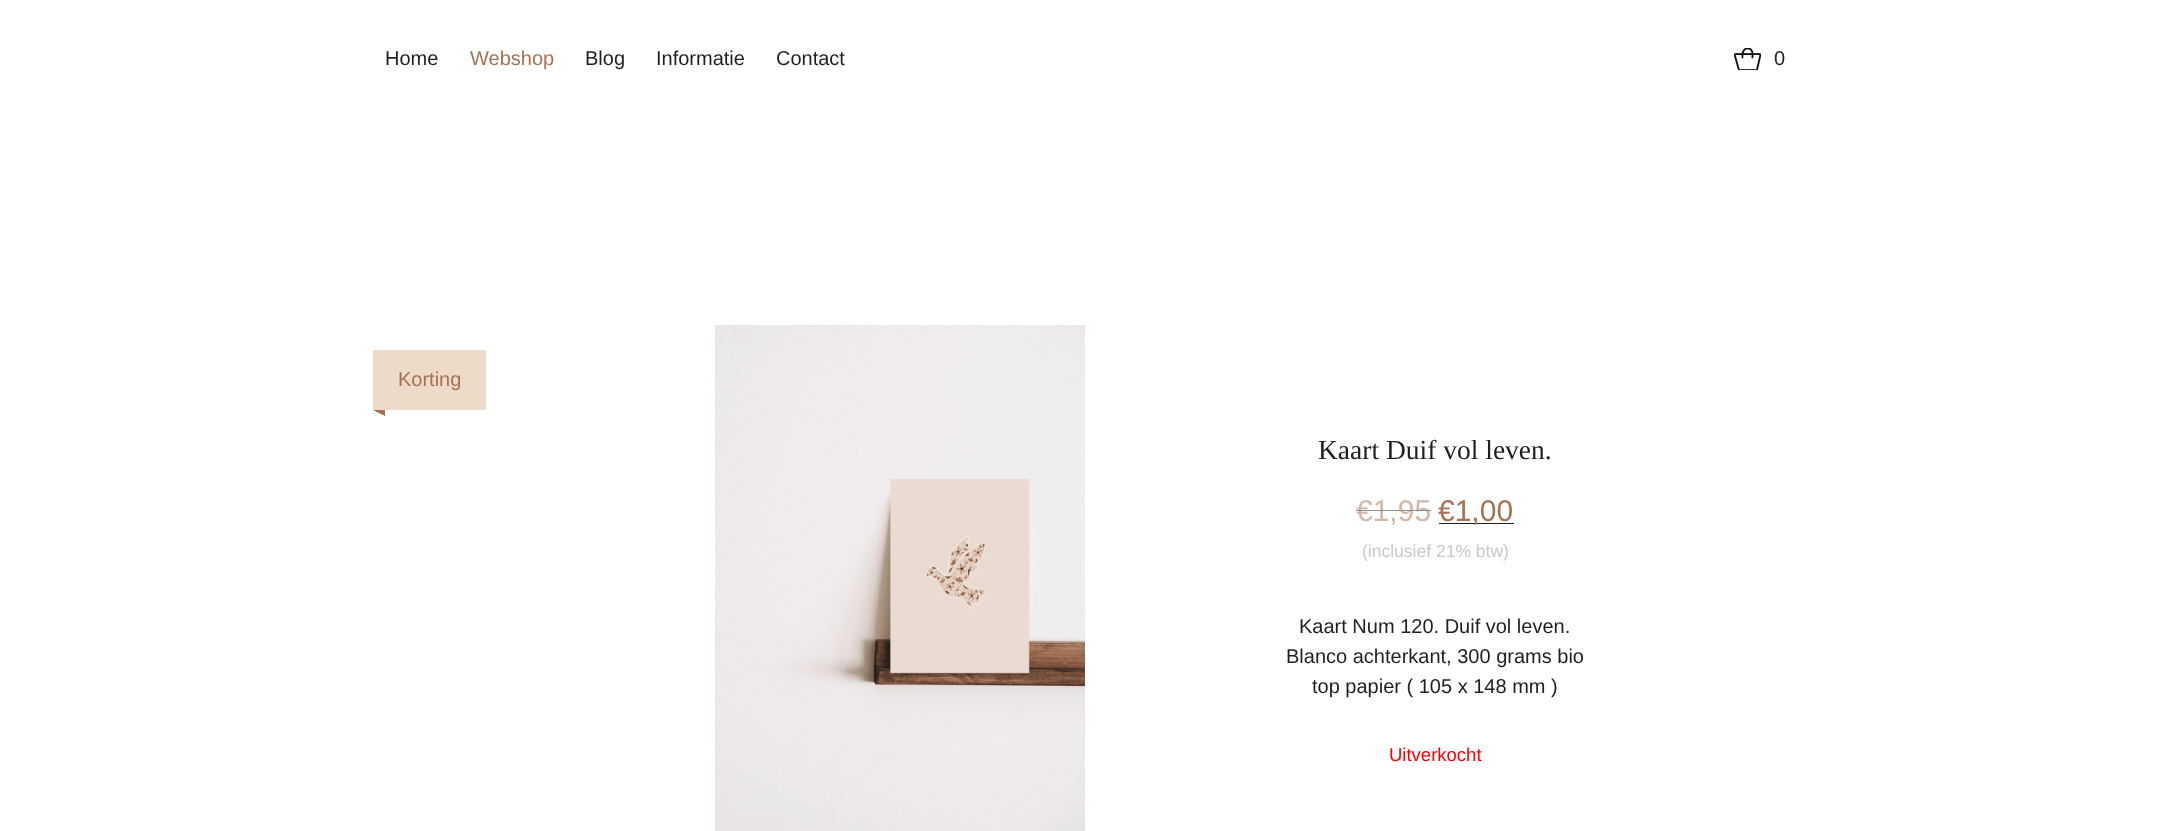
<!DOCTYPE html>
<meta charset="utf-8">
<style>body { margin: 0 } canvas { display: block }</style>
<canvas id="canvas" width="2170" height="831"></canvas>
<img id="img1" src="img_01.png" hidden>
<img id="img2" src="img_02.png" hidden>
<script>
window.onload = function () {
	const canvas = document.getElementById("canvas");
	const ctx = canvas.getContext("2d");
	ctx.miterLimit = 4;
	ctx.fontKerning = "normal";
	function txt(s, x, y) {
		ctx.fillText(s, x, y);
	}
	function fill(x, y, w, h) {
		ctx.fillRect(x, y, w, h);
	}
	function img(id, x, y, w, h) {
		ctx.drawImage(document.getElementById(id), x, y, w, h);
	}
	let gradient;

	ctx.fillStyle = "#FFFFFF";
	fill(0, 0, 2170, 831);
	img("img1", 1734, 48, 27, 22);
	ctx.fillStyle = "#EDDAC9";
	fill(373, 350, 113, 60);
	gradient = ctx.createLinearGradient(381, 408, 376, 418);
	gradient.addColorStop(0, "#A67151");
	gradient.addColorStop(0.5, "#A67151");
	gradient.addColorStop(0.5, "#FFFFFF");
	ctx.fillStyle = gradient;
	fill(373, 410, 12, 6);
	img("img2", 715, 325, 370, 506);
	ctx.fillStyle = "#211F1C";
	fill(1439, 523, 75, 1);
	ctx.font = "20px Liberation Sans";
	txt("Home", 385, 65);
	ctx.fillStyle = "#A67151";
	txt("Webshop", 470, 65);
	ctx.fillStyle = "#211F1C";
	txt("Blog", 585, 65);
	txt("Informatie", 656, 65);
	txt("Contact", 776, 65);
	txt("0", 1774, 65);
	ctx.fillStyle = "#A67151";
	txt("Korting", 398, 386);
	ctx.font = "27.5px Liberation Serif";
	ctx.fillStyle = "#211F1C";
	txt("Kaart Duif vol leven.", 1318, 459);
	ctx.font = "30px Liberation Sans";
	ctx.fillStyle = "#D3B8A8";
	txt("€1,95", 1356, 521);
	ctx.fillStyle = "#908F8E";
	fill(1356, 510, 75, 1);
	ctx.fillStyle = "#A67151";
	txt("€1,00", 1438, 521);
	ctx.font = "17.5px Liberation Sans";
	ctx.fillStyle = "#C8C8C8";
	txt("(inclusief 21% btw)", 1362, 557);
	ctx.font = "20px Liberation Sans";
	ctx.fillStyle = "#211F1C";
	txt("Kaart Num 120. Duif vol leven.", 1299, 633);
	txt("Blanco achterkant, 300 grams bio", 1286, 663);
	txt("top papier ( 105 x 148 mm )", 1312, 693);
	ctx.font = "18.5px Liberation Sans";
	ctx.fillStyle = "#FF0000";
	txt("Uitverkocht", 1389, 761);
};
</script>
